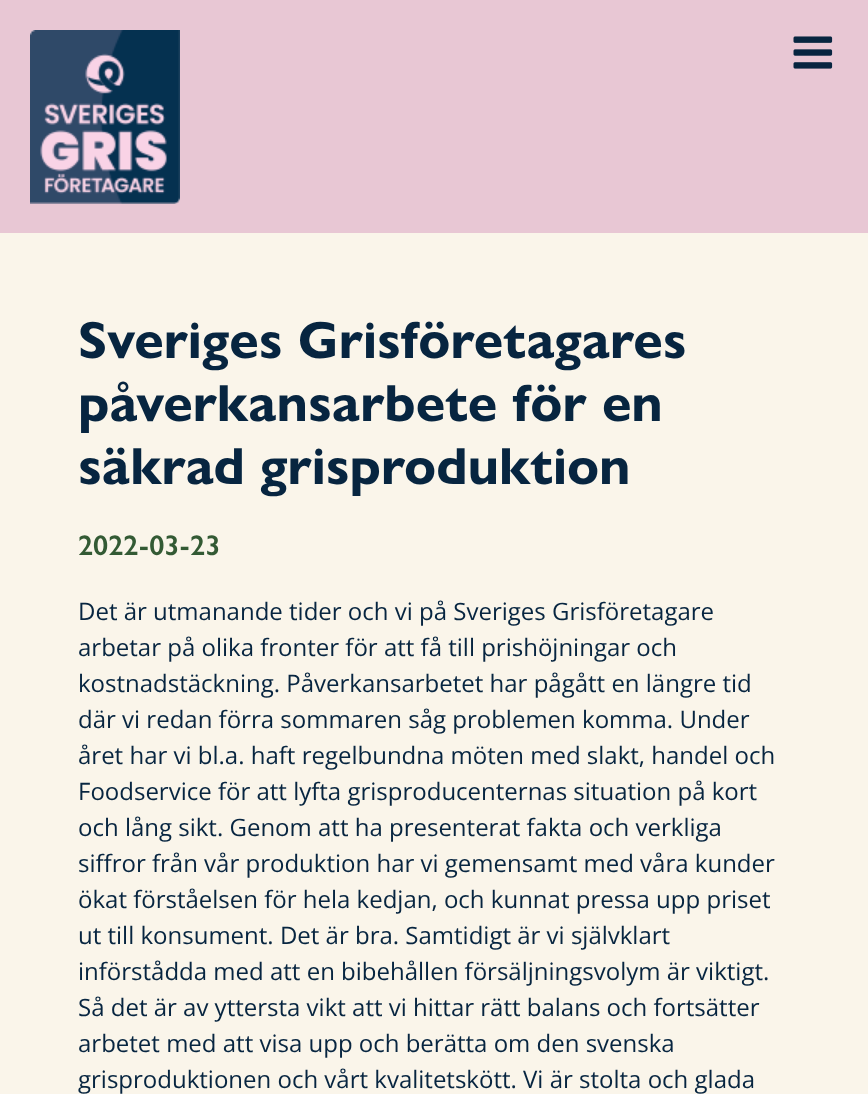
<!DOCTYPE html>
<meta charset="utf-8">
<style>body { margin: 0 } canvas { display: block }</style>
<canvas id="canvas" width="868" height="1094"></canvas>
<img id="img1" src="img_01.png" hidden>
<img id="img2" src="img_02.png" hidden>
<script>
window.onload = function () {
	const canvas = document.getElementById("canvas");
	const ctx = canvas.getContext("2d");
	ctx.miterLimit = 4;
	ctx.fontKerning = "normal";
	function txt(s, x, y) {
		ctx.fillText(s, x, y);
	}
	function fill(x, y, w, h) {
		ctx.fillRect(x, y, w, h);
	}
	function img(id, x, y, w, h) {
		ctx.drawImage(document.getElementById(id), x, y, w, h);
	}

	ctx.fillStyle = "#FAF5EA";
	fill(0, 0, 868, 1094);
	ctx.fillStyle = "#E8C7D4";
	fill(0, 0, 868, 233);
	img("img1", 30, 30, 150, 174);
	img("img2", 793, 36, 40, 33);
	ctx.font = "bold 52.5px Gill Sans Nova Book";
	ctx.fillStyle = "#072540";
	txt("Sveriges Grisföretagares", 78, 358);
	txt("påverkansarbete för en", 78, 421);
	txt("säkrad grisproduktion", 78, 484);
	ctx.font = "600 28.5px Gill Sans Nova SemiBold";
	ctx.fillStyle = "#335A34";
	txt("2022-03-23", 78, 555);
	ctx.font = "24px Open Sans";
	ctx.fillStyle = "#072540";
	txt("Det är utmanande tider och vi på Sveriges Grisföretagare", 78, 620);
	txt("arbetar på olika fronter för att få till prishöjningar och", 78, 656);
	txt("kostnadstäckning. Påverkansarbetet har pågått en längre tid", 78, 692);
	txt("där vi redan förra sommaren såg problemen komma. Under", 78, 728);
	txt("året har vi bl.a. haft regelbundna möten med slakt, handel och", 78, 764);
	txt("Foodservice för att lyfta grisproducenternas situation på kort", 78, 800);
	txt("och lång sikt. Genom att ha presenterat fakta och verkliga", 78, 836);
	txt("siffror från vår produktion har vi gemensamt med våra kunder", 78, 872);
	txt("ökat förståelsen för hela kedjan, och kunnat pressa upp priset", 78, 908);
	txt("ut till konsument. Det är bra. Samtidigt är vi självklart", 78, 944);
	txt("införstådda med att en bibehållen försäljningsvolym är viktigt.", 78, 980);
	txt("Så det är av yttersta vikt att vi hittar rätt balans och fortsätter", 78, 1016);
	txt("arbetet med att visa upp och berätta om den svenska", 78, 1052);
	txt("grisproduktionen och vårt kvalitetskött. Vi är stolta och glada", 78, 1088);
};
</script>
